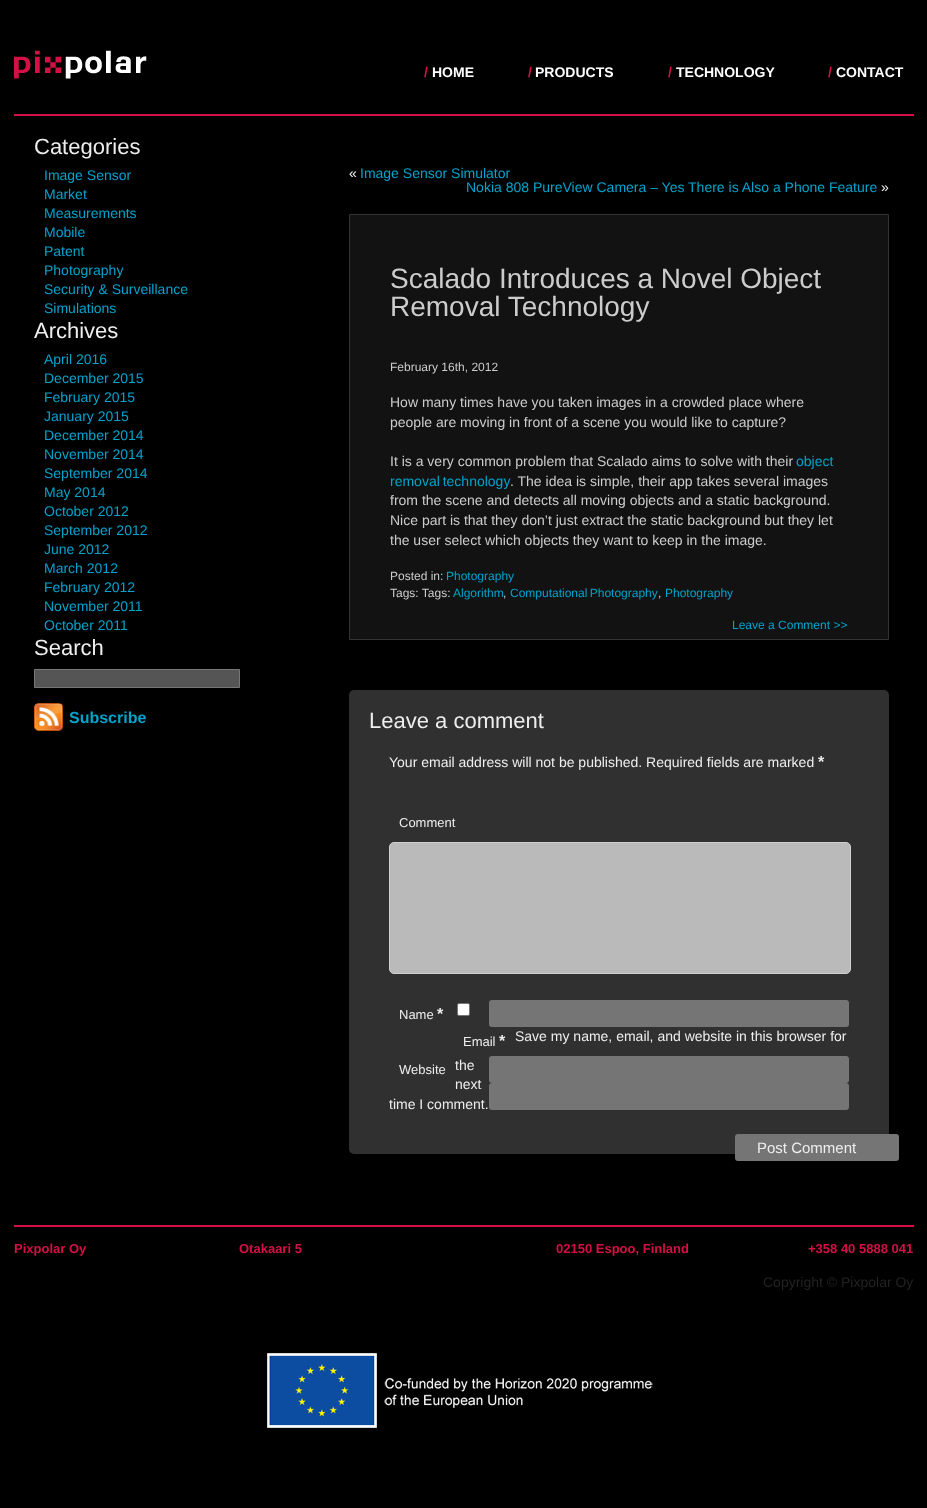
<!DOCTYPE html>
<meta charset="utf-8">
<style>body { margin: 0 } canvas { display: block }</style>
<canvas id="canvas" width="927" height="1508"></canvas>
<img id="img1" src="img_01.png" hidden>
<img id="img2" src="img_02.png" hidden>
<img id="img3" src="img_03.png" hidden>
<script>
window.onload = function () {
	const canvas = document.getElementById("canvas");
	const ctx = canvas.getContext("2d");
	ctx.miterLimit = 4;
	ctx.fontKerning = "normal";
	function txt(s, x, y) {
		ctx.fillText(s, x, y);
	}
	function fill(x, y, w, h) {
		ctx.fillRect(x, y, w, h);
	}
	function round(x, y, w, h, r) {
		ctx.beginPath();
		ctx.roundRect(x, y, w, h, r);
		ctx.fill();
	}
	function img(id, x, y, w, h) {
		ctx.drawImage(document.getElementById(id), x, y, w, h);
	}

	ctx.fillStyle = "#000000";
	fill(0, 0, 927, 1508);
	img("img1", 14, 50, 133, 29);
	ctx.fillStyle = "#D31145";
	fill(14, 114, 900, 2);
	ctx.fillStyle = "#555555";
	ctx.beginPath();
	ctx.rect(34.5, 669.5, 205, 18);
	ctx.fill();
	ctx.strokeStyle = "#777777";
	ctx.stroke();
	img("img2", 34, 703, 29, 28);
	ctx.fillStyle = "#121212";
	ctx.beginPath();
	ctx.rect(349.5, 214.5, 539, 425);
	ctx.fill();
	ctx.strokeStyle = "#333333";
	ctx.stroke();
	ctx.fillStyle = "#303030";
	round(349, 690, 540, 464, 5);
	ctx.fillStyle = "#BABABA";
	ctx.beginPath();
	ctx.roundRect(389.5, 842.5, 461, 131, 4.5);
	ctx.fill();
	ctx.strokeStyle = "#D1D1D1";
	ctx.stroke();
	ctx.fillStyle = "#757575";
	round(489, 1000, 360, 27, 3);
	ctx.fillStyle = "#FFFFFF";
	ctx.beginPath();
	ctx.roundRect(457.5, 1003.5, 12, 12, 1.5);
	ctx.fill();
	ctx.strokeStyle = "#767676";
	ctx.stroke();
	ctx.fillStyle = "#757575";
	round(489, 1056, 360, 27, 3);
	round(489, 1083, 360, 27, 3);
	round(735, 1134, 164, 27, 3);
	ctx.fillStyle = "#D31145";
	fill(14, 1225, 900, 2);
	img("img3", 267, 1353, 386, 75);
	ctx.font = "bold 14px Liberation Sans";
	txt("/", 424, 77);
	ctx.fillStyle = "#FFFFFF";
	txt("HOME", 432, 77);
	ctx.fillStyle = "#D31145";
	txt("/", 528, 77);
	ctx.fillStyle = "#FFFFFF";
	txt("PRODUCTS", 535, 77);
	ctx.fillStyle = "#D31145";
	txt("/", 668, 77);
	ctx.fillStyle = "#FFFFFF";
	txt("TECHNOLOGY", 676, 77);
	ctx.fillStyle = "#D31145";
	txt("/", 828, 77);
	ctx.fillStyle = "#FFFFFF";
	txt("CONTACT", 836, 77);
	ctx.font = "22px Liberation Sans";
	ctx.fillStyle = "#EEEEEE";
	txt("Categories", 34, 154);
	ctx.font = "14px Liberation Sans";
	ctx.fillStyle = "#00A3CC";
	txt("Image Sensor", 44, 180);
	txt("Market", 44, 199);
	txt("Measurements", 44, 218);
	txt("Mobile", 44, 237);
	txt("Patent", 44, 256);
	txt("Photography", 44, 275);
	txt("Security & Surveillance", 44, 294);
	txt("Simulations", 44, 313);
	ctx.font = "22px Liberation Sans";
	ctx.fillStyle = "#EEEEEE";
	txt("Archives", 34, 338);
	ctx.font = "14px Liberation Sans";
	ctx.fillStyle = "#00A3CC";
	txt("April 2016", 44, 364);
	txt("December 2015", 44, 383);
	txt("February 2015", 44, 402);
	txt("January 2015", 44, 421);
	txt("December 2014", 44, 440);
	txt("November 2014", 44, 459);
	txt("September 2014", 44, 478);
	txt("May 2014", 44, 497);
	txt("October 2012", 44, 516);
	txt("September 2012", 44, 535);
	txt("June 2012", 44, 554);
	txt("March 2012", 44, 573);
	txt("February 2012", 44, 592);
	txt("November 2011", 44, 611);
	txt("October 2011", 44, 630);
	ctx.font = "22px Liberation Sans";
	ctx.fillStyle = "#EEEEEE";
	txt("Search", 34, 655);
	ctx.font = "bold 16px Liberation Sans";
	ctx.fillStyle = "#00A3CC";
	txt("Subscribe", 69, 723);
	ctx.font = "14px Liberation Sans";
	ctx.fillStyle = "#EEEEEE";
	txt("«", 349, 178);
	ctx.fillStyle = "#00A3CC";
	txt("Image Sensor Simulator", 360, 178);
	txt("Nokia 808 PureView Camera – Yes There is Also a Phone Feature", 466, 192);
	ctx.fillStyle = "#EEEEEE";
	txt("»", 881, 192);
	ctx.font = "28px Liberation Sans";
	ctx.fillStyle = "#CCCCCC";
	txt("Scalado Introduces a Novel Object", 390, 288);
	txt("Removal Technology", 390, 316);
	ctx.font = "12px Liberation Sans";
	txt("February 16th, 2012", 390, 371);
	ctx.font = "14px Liberation Sans";
	txt("How many times have you taken images in a crowded place where", 390, 407);
	txt("people are moving in front of a scene you would like to capture?", 390, 427);
	txt("It is a very common problem that Scalado aims to solve with their", 390, 466);
	ctx.fillStyle = "#00A3CC";
	txt("object", 796, 466);
	ctx.wordSpacing = "-1px";
	txt("removal technology", 390, 486);
	ctx.wordSpacing = "0px";
	ctx.fillStyle = "#CCCCCC";
	txt(". The idea is simple, their app takes several images", 510, 486);
	txt("from the scene and detects all moving objects and a static background.", 390, 505);
	txt("Nice part is that they don’t just extract the static background but they let", 390, 525);
	txt("the user select which objects they want to keep in the image.", 390, 545);
	ctx.font = "12px Liberation Sans";
	txt("Posted in:", 390, 580);
	ctx.fillStyle = "#00A3CC";
	txt("Photography", 446, 580);
	ctx.fillStyle = "#CCCCCC";
	txt("Tags: Tags:", 390, 597);
	ctx.fillStyle = "#00A3CC";
	txt("Algorithm", 453, 597);
	ctx.fillStyle = "#CCCCCC";
	txt(",", 503, 597);
	ctx.wordSpacing = "-1px";
	ctx.fillStyle = "#00A3CC";
	txt("Computational Photography", 510, 597);
	ctx.wordSpacing = "0px";
	ctx.fillStyle = "#CCCCCC";
	txt(",", 658, 597);
	ctx.fillStyle = "#00A3CC";
	txt("Photography", 665, 597);
	txt("Leave a Comment >>", 732, 629);
	ctx.font = "22px Liberation Sans";
	ctx.fillStyle = "#EEEEEE";
	txt("Leave a comment", 369, 728);
	ctx.font = "14px Liberation Sans";
	txt("Your email address will not be published. Required fields are marked", 389, 767);
	ctx.font = "bold 16px Liberation Sans";
	txt("*", 818, 767);
	ctx.font = "13px Liberation Sans";
	txt("Comment", 399, 827);
	txt("Name", 399, 1019);
	ctx.font = "bold 16px Liberation Sans";
	txt("*", 437, 1019);
	ctx.font = "14px Liberation Sans";
	txt("Save my name, email, and website in this browser for", 515, 1041);
	txt("the", 455, 1070);
	txt("next", 455, 1089);
	txt("time I comment.", 389, 1109);
	ctx.font = "13px Liberation Sans";
	txt("Email", 463, 1046);
	ctx.font = "bold 16px Liberation Sans";
	txt("*", 499, 1046);
	ctx.font = "13px Liberation Sans";
	txt("Website", 399, 1074);
	ctx.font = "15px Liberation Sans";
	txt("Post Comment", 757, 1153);
	ctx.font = "bold 13px Liberation Sans";
	ctx.fillStyle = "#D31145";
	txt("Pixpolar Oy", 14, 1253);
	txt("Otakaari 5", 239, 1253);
	txt("02150 Espoo, Finland", 556, 1253);
	txt("+358 40 5888 041", 808, 1253);
	ctx.font = "14px Liberation Sans";
	ctx.fillStyle = "#222222";
	txt("Copyright © Pixpolar Oy", 763, 1287);
};
</script>
